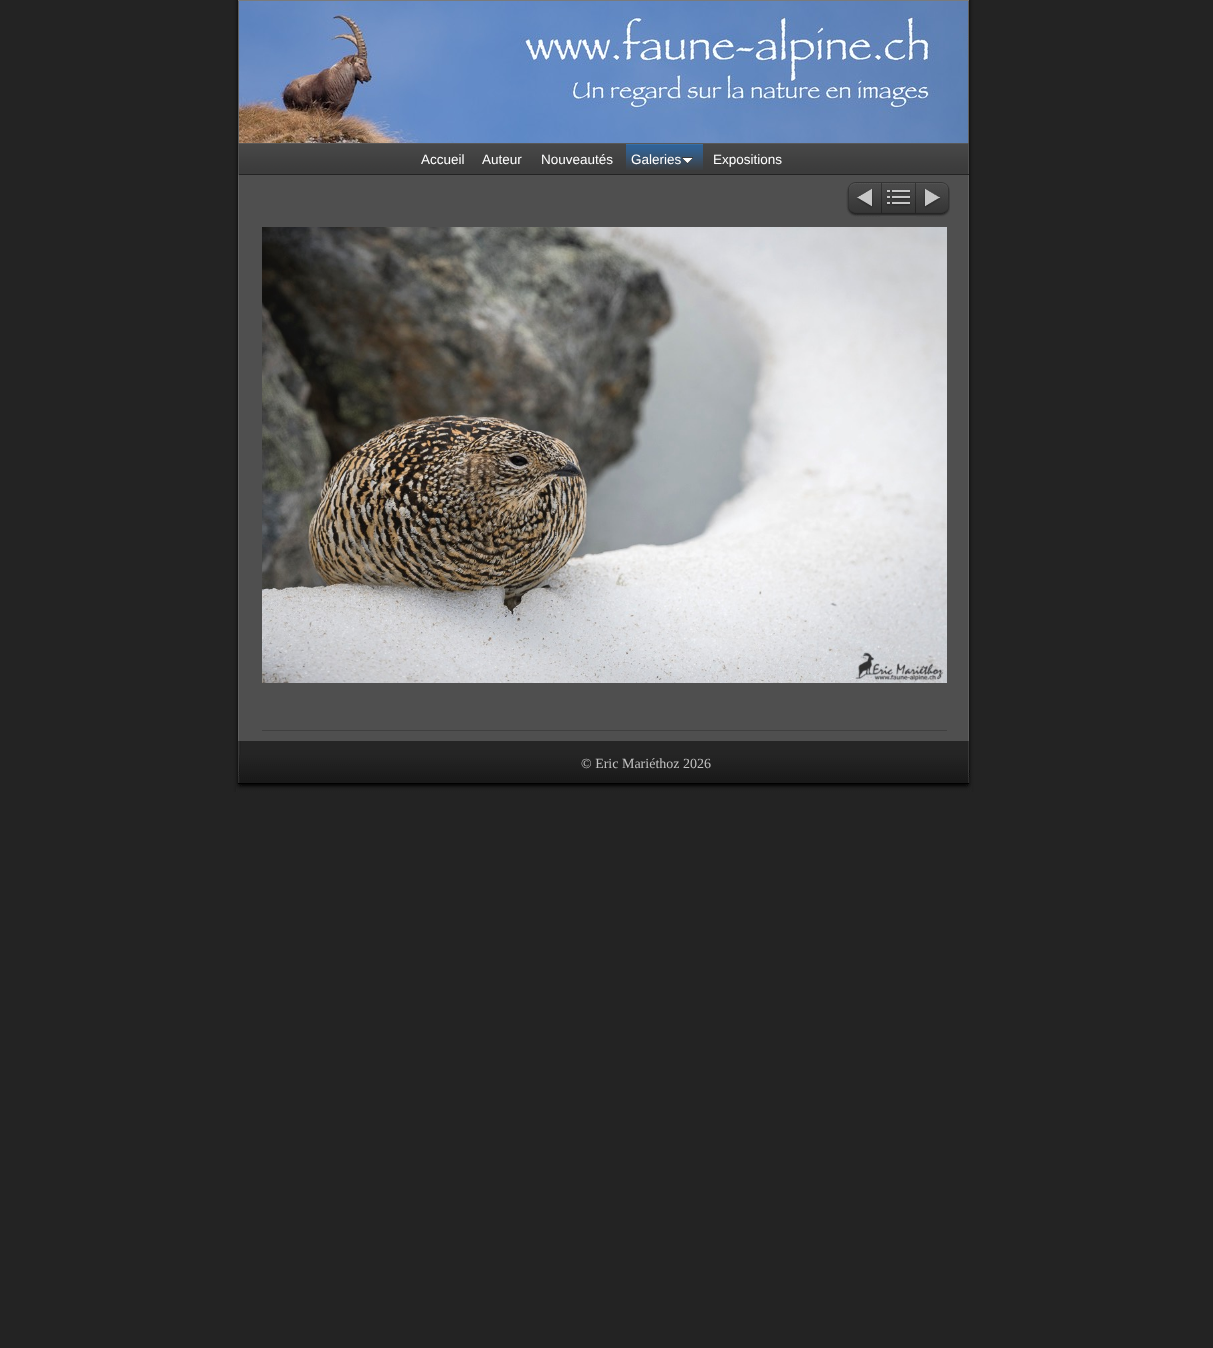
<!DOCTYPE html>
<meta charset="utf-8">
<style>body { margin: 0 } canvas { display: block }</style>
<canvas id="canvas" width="1213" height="1348"></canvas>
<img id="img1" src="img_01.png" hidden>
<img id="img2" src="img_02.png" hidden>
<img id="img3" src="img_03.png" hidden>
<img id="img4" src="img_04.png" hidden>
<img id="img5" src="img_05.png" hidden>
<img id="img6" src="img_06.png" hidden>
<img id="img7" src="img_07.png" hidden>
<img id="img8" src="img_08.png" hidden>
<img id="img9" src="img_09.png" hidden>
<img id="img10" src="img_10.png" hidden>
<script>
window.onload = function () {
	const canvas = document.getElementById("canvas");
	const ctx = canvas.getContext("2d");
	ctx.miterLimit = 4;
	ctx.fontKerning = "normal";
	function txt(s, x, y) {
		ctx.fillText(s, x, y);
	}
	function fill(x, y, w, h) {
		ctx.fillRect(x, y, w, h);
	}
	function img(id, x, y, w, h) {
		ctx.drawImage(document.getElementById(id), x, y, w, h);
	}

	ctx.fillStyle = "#232323";
	fill(0, 0, 1213, 1348);
	img("img1", 221, 0, 771, 792);
	img("img2", 239, 1, 729, 142);
	ctx.fillStyle = "#7A7A7A";
	fill(238, 0, 731, 1);
	img("img3", 239, 144, 729, 30);
	ctx.fillStyle = "#585858";
	fill(238, 143, 731, 1);
	ctx.fillStyle = "#525252";
	fill(968, 143, 1, 32);
	ctx.fillStyle = "#232323";
	fill(238, 174, 731, 1);
	ctx.fillStyle = "#525252";
	fill(238, 143, 1, 32);
	img("img4", 626, 144, 77, 26);
	img("img5", 682, 157, 11, 7);
	img("img6", 846, 182, 35, 35);
	img("img7", 881, 182, 35, 34);
	img("img8", 916, 182, 34, 35);
	ctx.fillStyle = "#3F3F3F";
	fill(262, 730, 685, 1);
	img("img9", 262, 227, 685, 456);
	img("img10", 236, 741, 736, 51);
	ctx.font = "13.5px Liberation Sans";
	ctx.fillStyle = "#FFFFFF";
	txt("Accueil", 421, 164);
	txt("Auteur", 482, 164);
	txt("Nouveautés", 541, 164);
	txt("Galeries", 631, 164);
	txt("Expositions", 713, 164);
	ctx.font = "14px Liberation Serif";
	ctx.fillStyle = "#C0C0C0";
	txt("© Eric Mariéthoz 2026", 581, 768);
};
</script>
